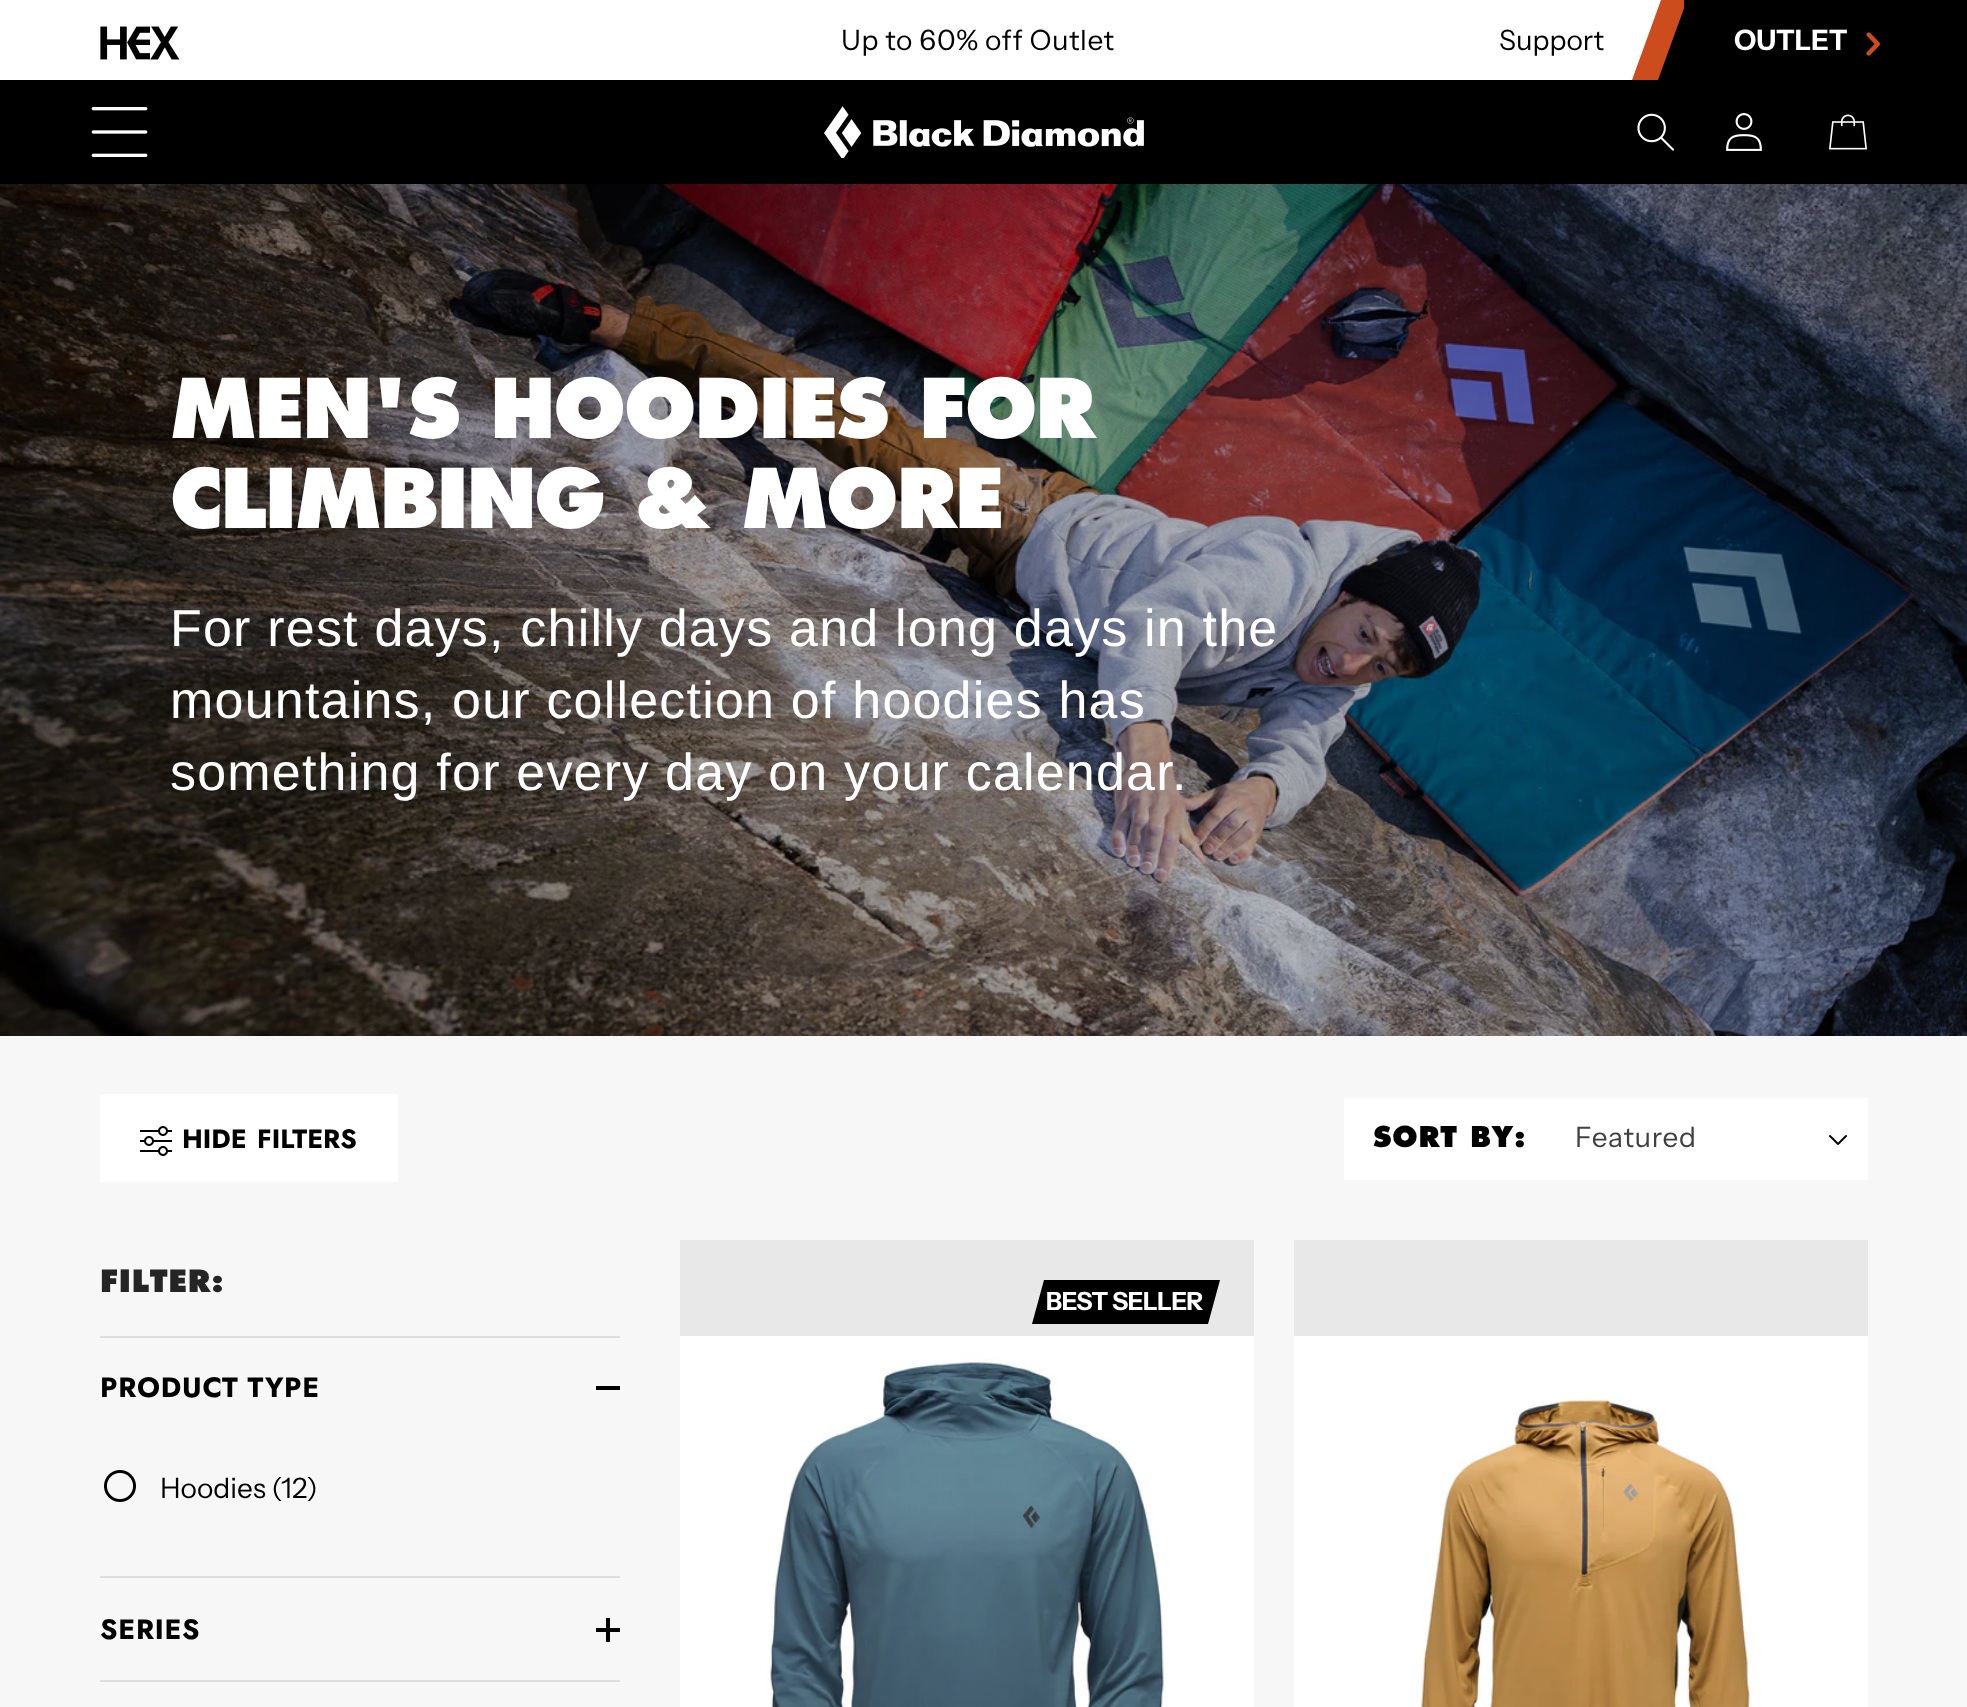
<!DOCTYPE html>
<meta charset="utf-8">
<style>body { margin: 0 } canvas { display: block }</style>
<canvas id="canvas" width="1967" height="1707"></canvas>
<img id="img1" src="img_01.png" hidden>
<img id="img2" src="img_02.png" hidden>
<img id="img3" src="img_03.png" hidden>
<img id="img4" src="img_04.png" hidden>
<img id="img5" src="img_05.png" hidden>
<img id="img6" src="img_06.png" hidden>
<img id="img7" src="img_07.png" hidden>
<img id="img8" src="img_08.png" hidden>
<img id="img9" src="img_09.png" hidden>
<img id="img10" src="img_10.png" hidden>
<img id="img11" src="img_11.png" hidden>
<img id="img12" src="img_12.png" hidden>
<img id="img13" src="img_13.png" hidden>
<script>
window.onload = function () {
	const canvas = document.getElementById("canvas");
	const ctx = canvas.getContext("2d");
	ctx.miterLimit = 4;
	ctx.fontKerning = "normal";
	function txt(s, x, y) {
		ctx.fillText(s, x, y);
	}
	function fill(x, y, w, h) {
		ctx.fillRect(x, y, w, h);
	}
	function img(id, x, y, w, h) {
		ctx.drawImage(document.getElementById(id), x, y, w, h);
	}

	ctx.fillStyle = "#F7F7F7";
	fill(0, 0, 1967, 1707);
	ctx.fillStyle = "#FFFFFF";
	fill(0, 0, 1661, 80);
	img("img1", 100, 26, 80, 34);
	ctx.fillStyle = "#000000";
	ctx.beginPath();
	ctx.moveTo(1685, 0);
	ctx.lineTo(1723, 0);
	ctx.lineTo(1694, 80);
	ctx.lineTo(1656, 80);
	ctx.closePath();
	ctx.fill();
	ctx.fillStyle = "#CD4C1E";
	ctx.beginPath();
	ctx.moveTo(1661, 0);
	ctx.lineTo(1687, 0);
	ctx.lineTo(1658, 80);
	ctx.lineTo(1632, 80);
	ctx.closePath();
	ctx.fill();
	ctx.fillStyle = "#000000";
	fill(1684, 0, 283, 80);
	img("img2", 1866, 32, 14, 24);
	fill(0, 80, 1967, 104);
	img("img3", 91, 107, 57, 50);
	img("img4", 824, 106, 320, 52);
	img("img5", 1637, 113, 37, 38);
	img("img6", 1726, 113, 36, 38);
	img("img7", 1829, 114, 38, 36);
	img("img8", 0, 184, 1967, 852);
	ctx.fillStyle = "#FFFFFF";
	fill(100, 1094, 298, 88);
	img("img9", 140, 1126, 32, 30);
	fill(1344, 1098, 524, 82);
	img("img10", 1829, 1135, 18, 10);
	ctx.fillStyle = "#DEDEDE";
	fill(100, 1336, 520, 2);
	ctx.fillStyle = "#000000";
	fill(596, 1386, 24, 4);
	img("img11", 104, 1470, 32, 32);
	ctx.fillStyle = "#DEDEDE";
	fill(100, 1576, 520, 2);
	ctx.fillStyle = "#000000";
	fill(596, 1628, 24, 4);
	fill(606, 1618, 4, 24);
	ctx.fillStyle = "#DEDEDE";
	fill(100, 1680, 520, 2);
	ctx.fillStyle = "#E8E8E8";
	fill(680, 1240, 574, 96);
	ctx.fillStyle = "#000000";
	ctx.beginPath();
	ctx.moveTo(1044, 1280);
	ctx.lineTo(1220, 1280);
	ctx.lineTo(1208, 1324);
	ctx.lineTo(1032, 1324);
	ctx.closePath();
	ctx.fill();
	img("img12", 680, 1336, 574, 371);
	ctx.fillStyle = "#E8E8E8";
	fill(1294, 1240, 574, 96);
	img("img13", 1294, 1336, 574, 371);
	ctx.letterSpacing = "0.6px";
	ctx.font = "28px Instrument Sans";
	ctx.fillStyle = "#000000";
	txt("Up to 60% off Outlet", 841, 50);
	ctx.letterSpacing = "0px";
	txt("Support", 1499, 50);
	ctx.font = "bold 28px Instrument Sans";
	ctx.fillStyle = "#FFFFFF";
	txt("OUTLET", 1734, 50);
	ctx.letterSpacing = "-2px";
	ctx.font = "bold 80px 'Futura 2'";
	txt("MEN'S HOODIES FOR", 170, 438);
	txt("CLIMBING & MORE", 170, 528);
	ctx.letterSpacing = "1.2px";
	ctx.font = "52px Liberation Sans";
	txt("For rest days, chilly days and long days in the", 170, 646);
	txt("mountains, our collection of hoodies has", 170, 718);
	txt("something for every day on your calendar.", 170, 790);
	ctx.letterSpacing = "0px";
	ctx.font = "bold 26.5px Futura";
	ctx.fillStyle = "#000000";
	txt("HIDE", 182, 1148);
	txt("FILTERS", 257, 1148);
	ctx.letterSpacing = "0.75px";
	ctx.font = "bold 28px 'Futura 2'";
	txt("SORT BY:", 1373, 1147);
	ctx.font = "28px Instrument Sans";
	ctx.fillStyle = "#404040";
	txt("Featured", 1575, 1147);
	ctx.font = "bold 30px 'Futura 2'";
	ctx.fillStyle = "#252525";
	txt("FILTER:", 100, 1292);
	ctx.font = "bold 28px Futura";
	ctx.fillStyle = "#000000";
	txt("PRODUCT TYPE", 100, 1397);
	ctx.letterSpacing = "0px";
	ctx.font = "28px Instrument Sans";
	txt("Hoodies (12)", 160, 1498);
	ctx.letterSpacing = "0.75px";
	ctx.font = "bold 28px Futura";
	txt("SERIES", 100, 1639);
	ctx.letterSpacing = "-0.5px";
	ctx.font = "bold 25px Instrument Sans";
	ctx.fillStyle = "#FFFFFF";
	txt("BEST SELLER", 1046, 1310);
};
</script>
